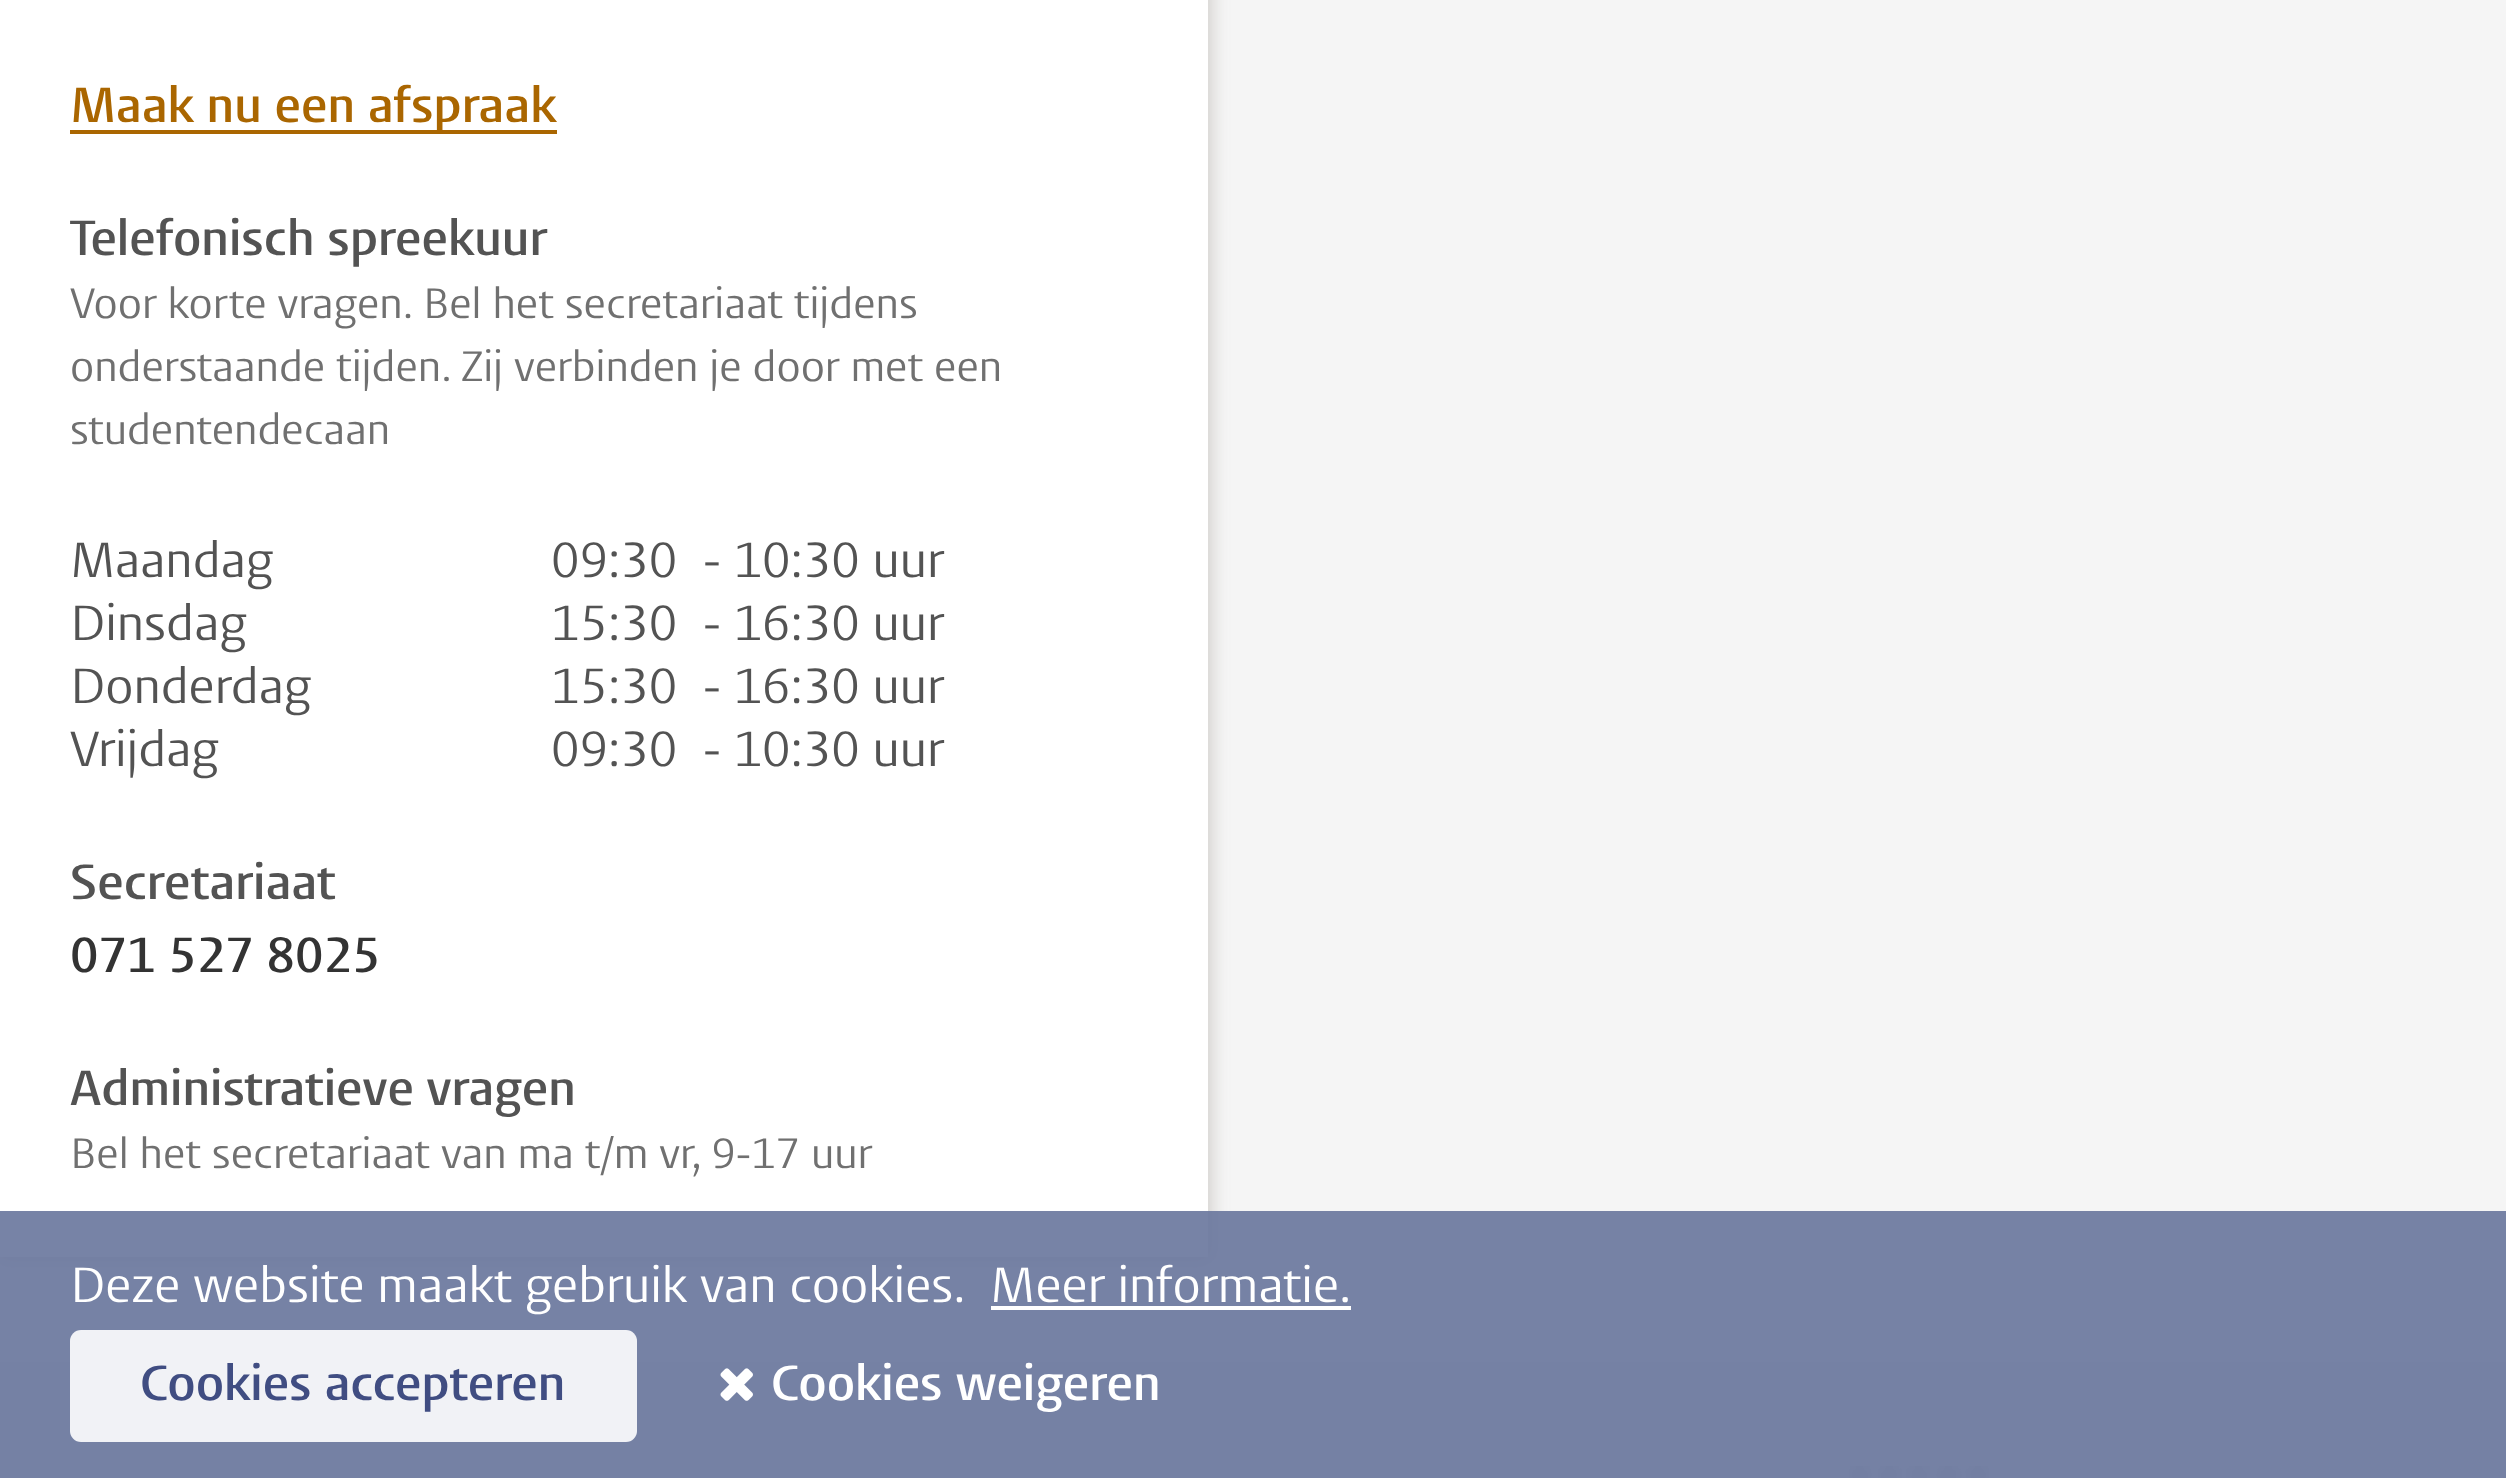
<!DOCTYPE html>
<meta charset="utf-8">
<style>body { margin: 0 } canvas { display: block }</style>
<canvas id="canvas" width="2506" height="1478"></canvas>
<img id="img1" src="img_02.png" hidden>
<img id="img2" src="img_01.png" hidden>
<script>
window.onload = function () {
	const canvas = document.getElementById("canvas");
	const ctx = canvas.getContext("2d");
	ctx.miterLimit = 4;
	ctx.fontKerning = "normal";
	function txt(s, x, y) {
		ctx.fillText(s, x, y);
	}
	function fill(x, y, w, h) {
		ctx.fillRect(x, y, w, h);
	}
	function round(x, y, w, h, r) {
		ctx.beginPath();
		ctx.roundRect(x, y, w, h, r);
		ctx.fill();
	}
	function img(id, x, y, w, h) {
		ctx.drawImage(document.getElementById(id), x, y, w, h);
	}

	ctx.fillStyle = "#F5F5F5";
	fill(0, 0, 2506, 1478);
	ctx.fillStyle = "rgba(120, 110, 100, 0.3)";
	ctx.filter = "blur(9px)";
	ctx.beginPath();
	ctx.rect(-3, -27, 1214, 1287);
	ctx.fill();
	ctx.filter = "none";
	ctx.fillStyle = "#FFFFFF";
	fill(0, 0, 1208, 1257);
	ctx.fillStyle = "#AA6600";
	fill(70, 130, 487, 4);
	ctx.fillStyle = "#E3E3E3";
	fill(0, 1362, 2506, 116);
	img("img1", 1849, 1466, 140, 12);
	ctx.fillStyle = "rgba(104, 118, 156, 0.9)";
	fill(0, 1211, 2506, 267);
	ctx.fillStyle = "#FFFFFF";
	fill(991, 1306, 360, 4);
	ctx.fillStyle = "#F1F2F6";
	round(70, 1330, 567, 112, 11);
	img("img2", 720, 1368, 33, 33);
	ctx.font = "600 49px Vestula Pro";
	ctx.fillStyle = "#AA6600";
	txt("Maak nu een afspraak", 70, 122);
	ctx.fillStyle = "#535353";
	txt("Telefonisch spreekuur", 70, 255);
	ctx.font = "42px Vestula Pro";
	ctx.fillStyle = "#707070";
	txt("Voor korte vragen. Bel het secretariaat tijdens", 70, 318);
	txt("onderstaande tijden. Zij verbinden je door met een", 70, 381);
	txt("studentendecaan", 70, 444);
	ctx.font = "49px Vestula Pro";
	ctx.fillStyle = "#535353";
	txt("Maandag", 70, 577);
	txt("09:30", 551, 577);
	txt("- 10:30 uur", 703, 577);
	txt("Dinsdag", 70, 640);
	txt("15:30", 551, 640);
	txt("- 16:30 uur", 703, 640);
	txt("Donderdag", 70, 703);
	txt("15:30", 551, 703);
	txt("- 16:30 uur", 703, 703);
	txt("Vrijdag", 70, 766);
	txt("09:30", 551, 766);
	txt("- 10:30 uur", 703, 766);
	ctx.font = "600 49px Vestula Pro";
	txt("Secretariaat", 70, 899);
	ctx.fillStyle = "#333333";
	txt("071 527 8025", 70, 972);
	ctx.fillStyle = "#535353";
	txt("Administratieve vragen", 70, 1105);
	ctx.font = "42px Vestula Pro";
	ctx.fillStyle = "#707070";
	txt("Bel het secretariaat van ma t/m vr, 9-17 uur", 70, 1168);
	ctx.font = "49px Vestula Pro";
	ctx.fillStyle = "#FFFFFF";
	txt("Deze website maakt gebruik van cookies.", 70, 1302);
	txt("Meer informatie.", 990, 1302);
	ctx.font = "600 49px Vestula Pro";
	ctx.fillStyle = "#404D82";
	txt("Cookies accepteren", 140, 1400);
	ctx.fillStyle = "#FFFFFF";
	txt("Cookies weigeren", 771, 1400);
};
</script>
